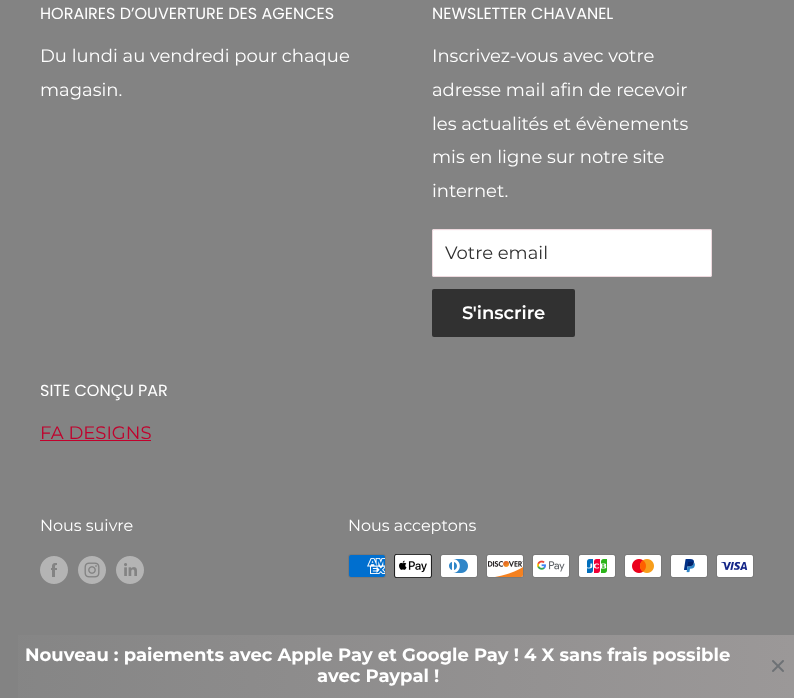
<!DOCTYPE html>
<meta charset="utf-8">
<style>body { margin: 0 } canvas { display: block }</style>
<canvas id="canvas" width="794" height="698"></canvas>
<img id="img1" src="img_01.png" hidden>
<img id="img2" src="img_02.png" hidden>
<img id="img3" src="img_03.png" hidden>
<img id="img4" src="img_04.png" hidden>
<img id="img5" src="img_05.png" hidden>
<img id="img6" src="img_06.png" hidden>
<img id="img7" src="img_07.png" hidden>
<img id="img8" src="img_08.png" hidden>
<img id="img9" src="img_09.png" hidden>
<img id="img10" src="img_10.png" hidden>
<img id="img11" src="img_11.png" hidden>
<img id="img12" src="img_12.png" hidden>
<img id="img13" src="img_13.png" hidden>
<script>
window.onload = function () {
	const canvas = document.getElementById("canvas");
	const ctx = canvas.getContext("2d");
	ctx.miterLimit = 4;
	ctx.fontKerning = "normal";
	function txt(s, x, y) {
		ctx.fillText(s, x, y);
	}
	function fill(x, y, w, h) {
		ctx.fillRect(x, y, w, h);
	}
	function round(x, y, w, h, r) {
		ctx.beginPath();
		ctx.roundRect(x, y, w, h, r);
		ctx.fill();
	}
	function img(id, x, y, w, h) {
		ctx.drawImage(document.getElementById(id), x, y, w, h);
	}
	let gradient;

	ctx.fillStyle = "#838383";
	fill(0, 0, 794, 698);
	ctx.fillStyle = "#FFFFFF";
	round(432, 229, 280, 48, 2);
	ctx.fillStyle = "#FDFAFB";
	ctx.beginPath();
	ctx.moveTo(434, 231);
	ctx.lineTo(710, 231);
	ctx.bezierCurveTo(711, 231, 711, 231, 711, 232);
	ctx.bezierCurveTo(711, 231, 711, 230, 710, 230);
	ctx.lineTo(434, 230);
	ctx.lineTo(433, 230);
	ctx.lineTo(433, 232);
	ctx.bezierCurveTo(433, 231, 433, 231, 434, 231);
	ctx.closePath();
	ctx.fill();
	ctx.beginPath();
	ctx.roundRect(432.5, 229.5, 279, 47, 1.5);
	ctx.strokeStyle = "#EDD9DE";
	ctx.stroke();
	ctx.fillStyle = "#313131";
	round(432, 289, 143, 48, 2);
	ctx.fillStyle = "#C1012C";
	fill(40, 440, 111, 1);
	img("img1", 40, 556, 28, 28);
	img("img2", 78, 556, 28, 28);
	img("img3", 116, 556, 28, 28);
	img("img4", 348, 554, 38, 24);
	img("img5", 394, 554, 38, 24);
	img("img6", 440, 554, 38, 24);
	img("img7", 486, 554, 38, 24);
	img("img8", 532, 554, 38, 24);
	img("img9", 578, 554, 38, 24);
	img("img10", 624, 554, 38, 24);
	img("img11", 670, 554, 38, 24);
	img("img12", 716, 554, 38, 24);
	gradient = ctx.createLinearGradient(0, 667, 794, 667);
	gradient.addColorStop(0, "#858585");
	gradient.addColorStop(1, "#9B9898");
	ctx.fillStyle = gradient;
	fill(18, 635, 776, 63);
	img("img13", 772, 660, 12, 12);
	ctx.font = "16px Poppins";
	ctx.fillStyle = "#FFFFFF";
	txt("HORAIRES D’OUVERTURE DES AGENCES", 40, 19);
	ctx.font = "18px Montserrat";
	txt("Du lundi au vendredi pour chaque", 40, 62);
	txt("magasin.", 40, 96);
	ctx.font = "16px Poppins";
	txt("NEWSLETTER CHAVANEL", 432, 19);
	ctx.font = "18px Montserrat";
	txt("Inscrivez-vous avec votre", 432, 62);
	txt("adresse mail afin de recevoir", 432, 96);
	txt("les actualités et évènements", 432, 130);
	txt("mis en ligne sur notre site", 432, 163);
	txt("internet.", 432, 197);
	ctx.fillStyle = "#313131";
	txt("Votre email", 445, 259);
	ctx.font = "600 18px Montserrat";
	ctx.fillStyle = "#FFFFFF";
	txt("S'inscrire", 462, 319);
	ctx.font = "16px Poppins";
	txt("SITE CONÇU PAR", 40, 396);
	ctx.font = "18px Montserrat";
	ctx.fillStyle = "#C1012C";
	txt("FA DESIGNS", 40, 439);
	ctx.font = "16px Montserrat";
	ctx.fillStyle = "#FFFFFF";
	txt("Nous suivre", 40, 531);
	txt("Nous acceptons", 348, 531);
	ctx.font = "bold 18px Montserrat";
	txt("Nouveau : paiements avec Apple Pay et Google Pay ! 4 X sans frais possible", 25, 661);
	txt("avec Paypal !", 317, 682);
};
</script>
